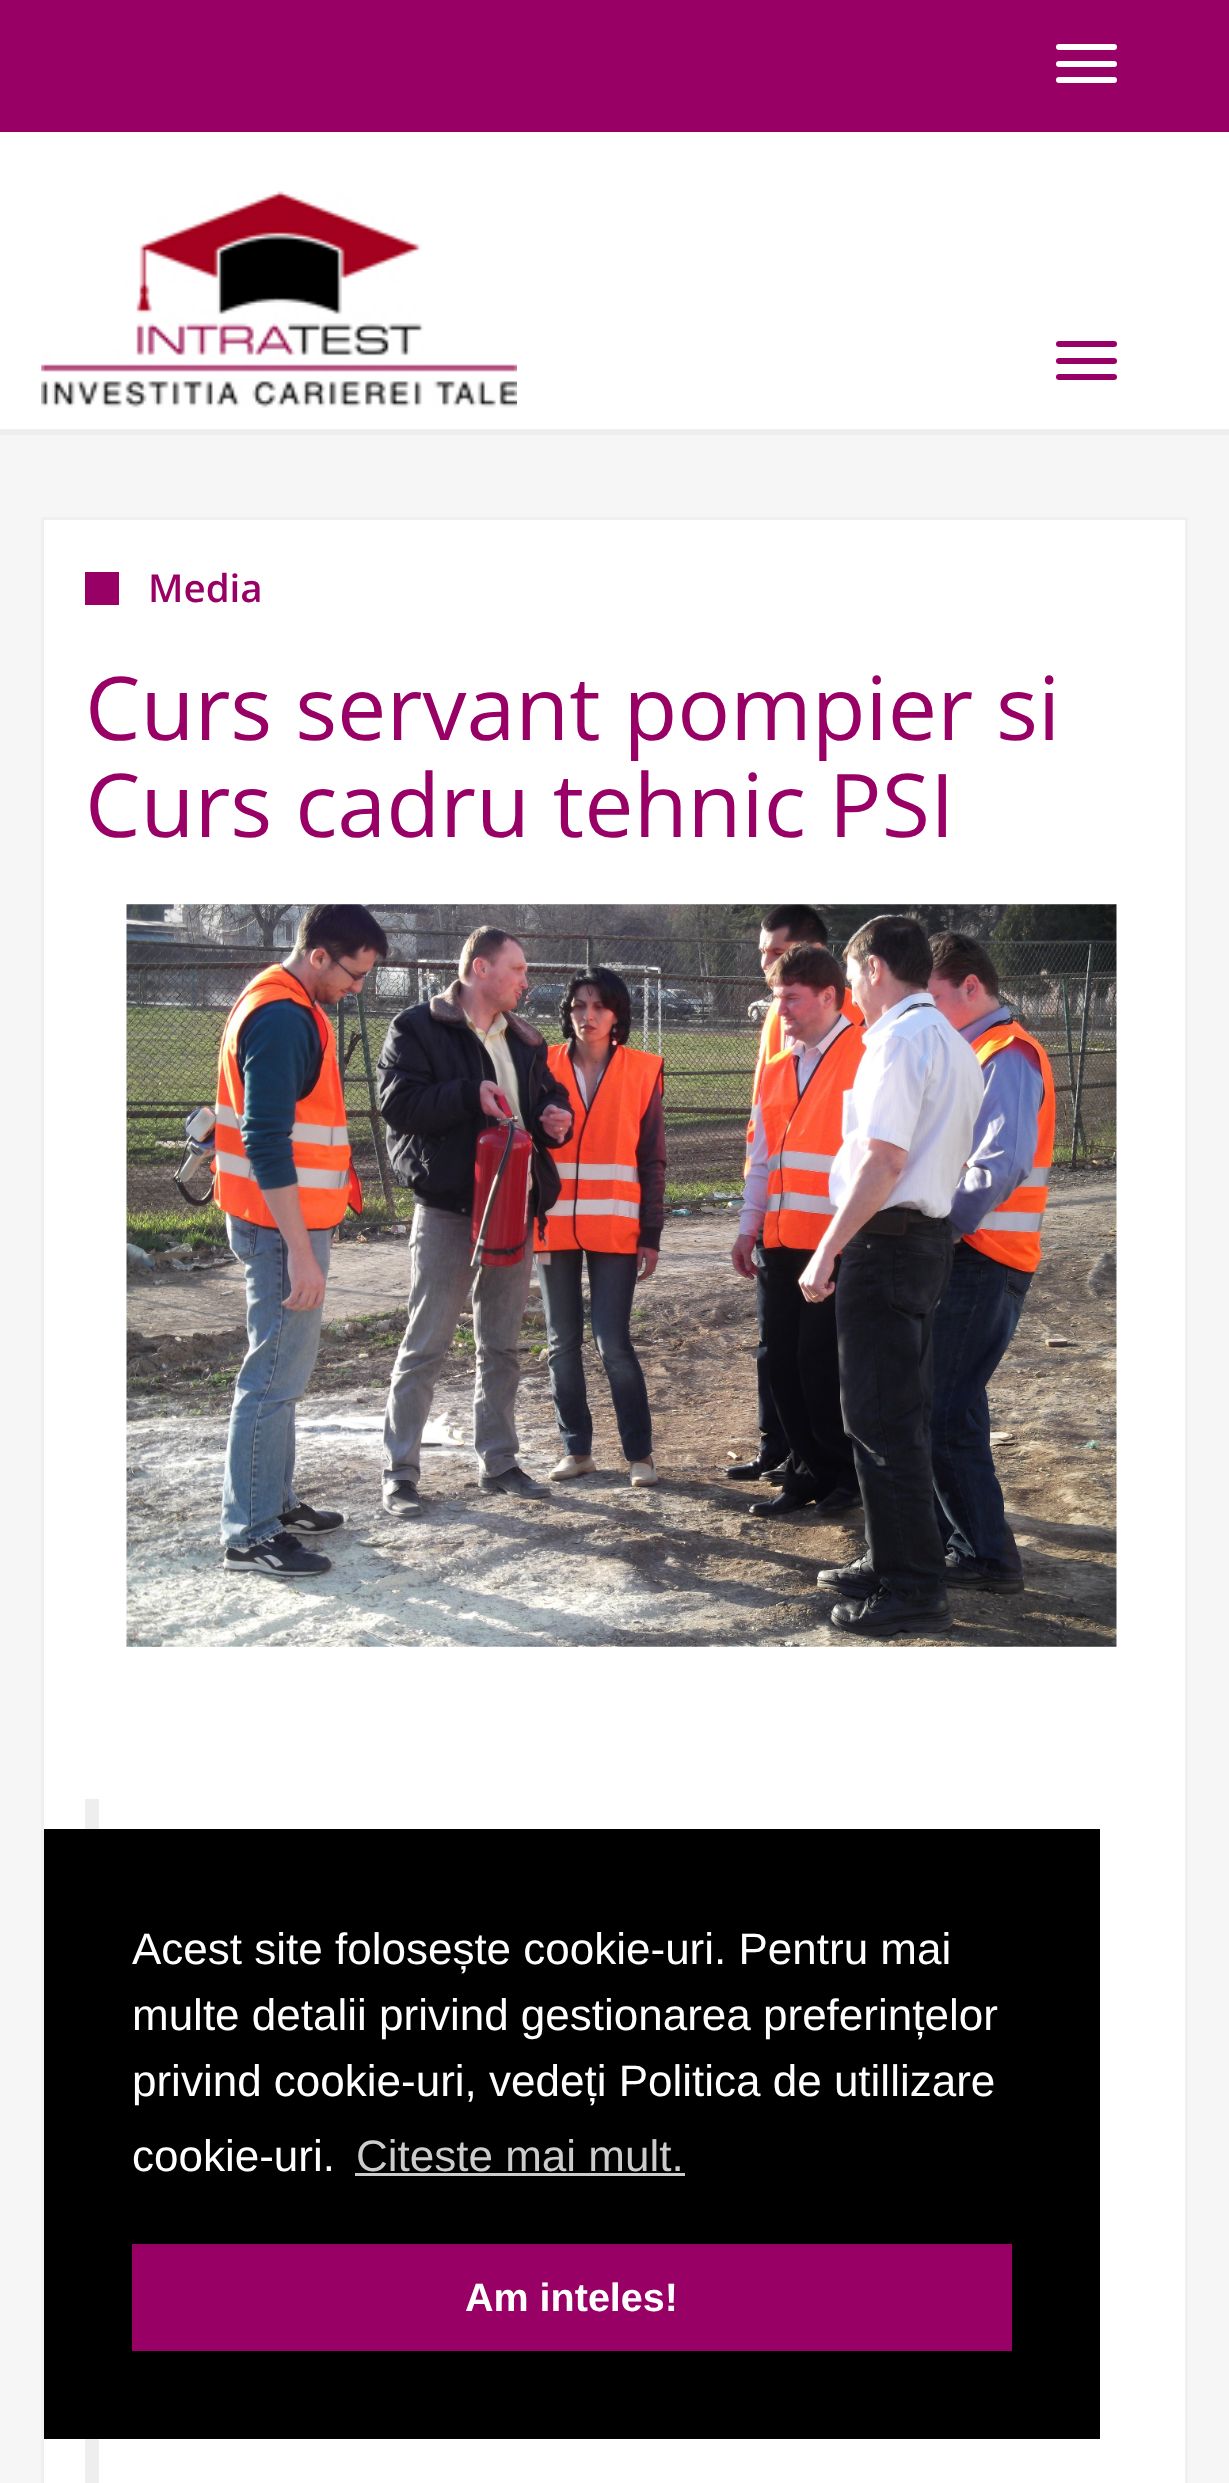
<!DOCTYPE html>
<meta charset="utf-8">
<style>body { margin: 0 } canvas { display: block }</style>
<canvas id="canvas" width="1229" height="2483"></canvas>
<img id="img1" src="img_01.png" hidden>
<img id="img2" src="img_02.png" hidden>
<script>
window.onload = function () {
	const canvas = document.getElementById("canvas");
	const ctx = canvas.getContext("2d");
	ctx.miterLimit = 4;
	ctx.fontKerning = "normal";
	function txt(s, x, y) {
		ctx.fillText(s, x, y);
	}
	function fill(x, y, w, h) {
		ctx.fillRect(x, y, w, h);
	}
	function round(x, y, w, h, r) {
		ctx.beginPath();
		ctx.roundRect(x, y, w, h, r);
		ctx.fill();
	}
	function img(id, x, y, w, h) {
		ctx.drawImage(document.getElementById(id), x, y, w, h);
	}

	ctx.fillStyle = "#F6F6F6";
	fill(0, 0, 1229, 2483);
	ctx.fillStyle = "#FFFFFF";
	fill(0, 132, 1229, 297);
	ctx.fillStyle = "#EEEEEE";
	fill(0, 429, 1229, 6);
	ctx.fillStyle = "#990066";
	fill(0, 0, 1229, 132);
	ctx.fillStyle = "#FFFFFF";
	round(1056, 44, 61, 6, 3);
	round(1056, 61, 61, 6, 3);
	round(1056, 77, 61, 6, 3);
	img("img1", 41, 191, 476, 217);
	ctx.fillStyle = "#990066";
	round(1056, 341, 61, 6, 3);
	round(1056, 358, 61, 6, 3);
	round(1056, 374, 61, 6, 3);
	ctx.fillStyle = "#FFFFFF";
	ctx.beginPath();
	ctx.rect(42.5, 518.5, 1144, 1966);
	ctx.fill();
	ctx.strokeStyle = "#F0F0F0";
	ctx.lineWidth = 3;
	ctx.stroke();
	ctx.fillStyle = "#990066";
	fill(85, 572, 34, 33);
	img("img2", 126, 904, 991, 743);
	ctx.fillStyle = "#EEEEEE";
	fill(85, 1799, 14, 30);
	fill(85, 2439, 14, 44);
	ctx.fillStyle = "#000000";
	fill(44, 1829, 1056, 610);
	ctx.fillStyle = "#CCCCCC";
	fill(355, 2173, 330, 3);
	ctx.fillStyle = "#990066";
	fill(132, 2244, 880, 107);
	ctx.font = "600 38.5px Open Sans";
	txt("Media", 148, 602);
	ctx.font = "88px Open Sans";
	txt("Curs servant pompier si", 85, 740);
	txt("Curs cadru tehnic PSI", 85, 837);
	ctx.font = "44px Liberation Sans";
	ctx.fillStyle = "#FFFFFF";
	txt("Acest site folosește cookie-uri. Pentru mai", 132, 1964);
	txt("multe detalii privind gestionarea preferințelor", 132, 2030);
	txt("privind cookie-uri, vedeți Politica de utillizare", 132, 2096);
	txt("cookie-uri.", 132, 2171);
	ctx.fillStyle = "#CCCCCC";
	txt("Citeste mai mult.", 356, 2171);
	ctx.font = "bold 39.5px Liberation Sans";
	ctx.fillStyle = "#FFFFFF";
	txt("Am inteles!", 465, 2311);
};
</script>
